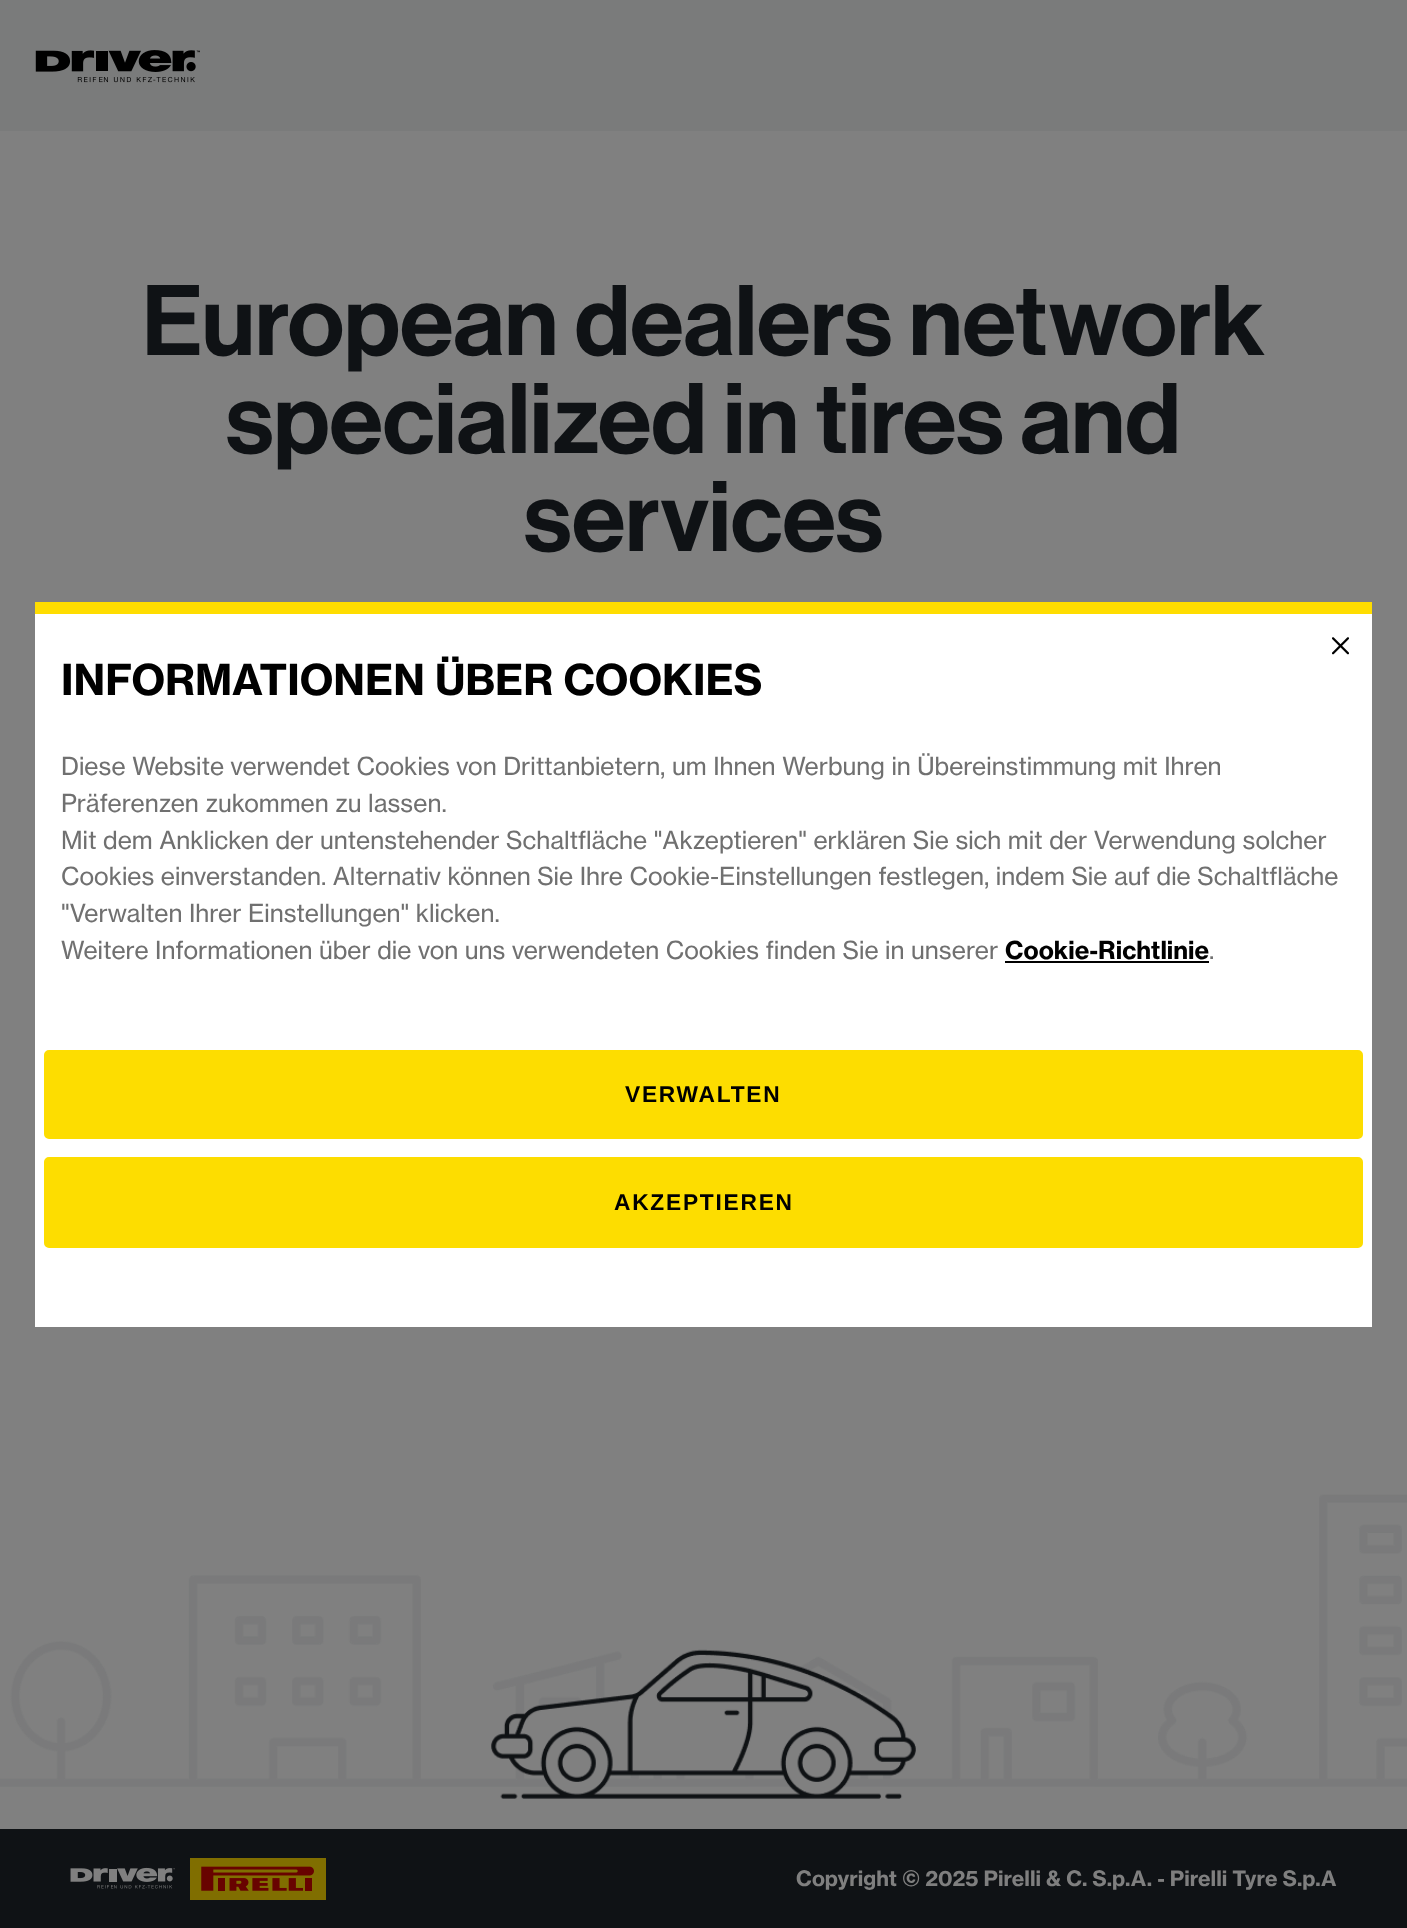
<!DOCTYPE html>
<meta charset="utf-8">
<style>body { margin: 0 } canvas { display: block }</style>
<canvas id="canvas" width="1407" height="1928"></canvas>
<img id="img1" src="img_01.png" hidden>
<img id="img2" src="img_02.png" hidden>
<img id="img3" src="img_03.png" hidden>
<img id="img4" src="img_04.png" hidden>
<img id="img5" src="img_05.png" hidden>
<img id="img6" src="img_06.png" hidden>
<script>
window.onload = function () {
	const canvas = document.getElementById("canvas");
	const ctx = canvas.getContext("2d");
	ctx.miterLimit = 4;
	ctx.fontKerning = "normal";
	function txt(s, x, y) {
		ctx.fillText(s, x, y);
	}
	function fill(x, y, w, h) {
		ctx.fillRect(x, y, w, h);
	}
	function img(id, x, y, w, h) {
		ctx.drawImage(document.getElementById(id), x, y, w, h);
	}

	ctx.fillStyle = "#808080";
	fill(0, 0, 1407, 1928);
	ctx.fillStyle = "#7A7B7B";
	fill(0, 0, 1407, 131);
	img("img1", 35, 50, 165, 33);
	img("img2", 0, 1494, 1407, 293);
	img("img3", 491, 1649, 425, 150);
	ctx.fillStyle = "#0F1215";
	fill(0, 1829, 1407, 99);
	img("img4", 70, 1867, 105, 22);
	img("img5", 190, 1858, 136, 42);
	ctx.fillStyle = "#FFFFFF";
	fill(35, 614, 1337, 713);
	ctx.fillStyle = "#FFDD00";
	fill(35, 602, 1337, 12);
	img("img6", 1332, 637, 17, 18);
	ctx.fillStyle = "#000000";
	fill(1005, 961, 204, 2);
	ctx.fillStyle = "#FDDD00";
	ctx.beginPath();
	ctx.roundRect(45, 1051, 1317, 87, 4);
	ctx.fill();
	ctx.strokeStyle = "#FDDD00";
	ctx.lineWidth = 2;
	ctx.stroke();
	ctx.beginPath();
	ctx.roundRect(45, 1158, 1317, 89, 4);
	ctx.fill();
	ctx.stroke();
	ctx.font = "500 98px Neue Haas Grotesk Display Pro";
	ctx.fillStyle = "#0F1215";
	txt("European dealers network", 142, 355);
	txt("specialized in tires and", 226, 453);
	txt("services", 524, 551);
	ctx.font = "bold 21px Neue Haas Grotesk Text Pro";
	ctx.fillStyle = "#7F7F7F";
	txt("Copyright © 2025 Pirelli & C. S.p.A. - Pirelli Tyre S.p.A", 796, 1886);
	ctx.font = "bold 42px Neue Haas Grotesk Text Pro";
	ctx.fillStyle = "#000000";
	txt("INFORMATIONEN ÜBER COOKIES", 61, 695);
	ctx.font = "24.5px Neue Haas Grotesk Text Pro";
	ctx.fillStyle = "#707070";
	txt("Diese Website verwendet Cookies von Drittanbietern, um Ihnen Werbung in Übereinstimmung mit Ihren", 61, 775);
	txt("Präferenzen zukommen zu lassen.", 61, 812);
	txt("Mit dem Anklicken der untenstehender Schaltfläche \"Akzeptieren\" erklären Sie sich mit der Verwendung solcher", 61, 849);
	txt("Cookies einverstanden. Alternativ können Sie Ihre Cookie-Einstellungen festlegen, indem Sie auf die Schaltfläche", 61, 885);
	txt("\"Verwalten Ihrer Einstellungen\" klicken.", 61, 922);
	txt("Weitere Informationen über die von uns verwendeten Cookies finden Sie in unserer", 61, 959);
	ctx.font = "bold 24.5px Neue Haas Grotesk Text Pro";
	ctx.fillStyle = "#000000";
	txt("Cookie-Richtlinie", 1005, 959);
	ctx.font = "24.5px Neue Haas Grotesk Text Pro";
	ctx.fillStyle = "#707070";
	txt(".", 1209, 959);
	ctx.letterSpacing = "1.75px";
	ctx.font = "bold 22.75px Liberation Sans";
	ctx.fillStyle = "#000000";
	txt("VERWALTEN", 625, 1102);
	txt("AKZEPTIEREN", 614, 1210);
};
</script>
